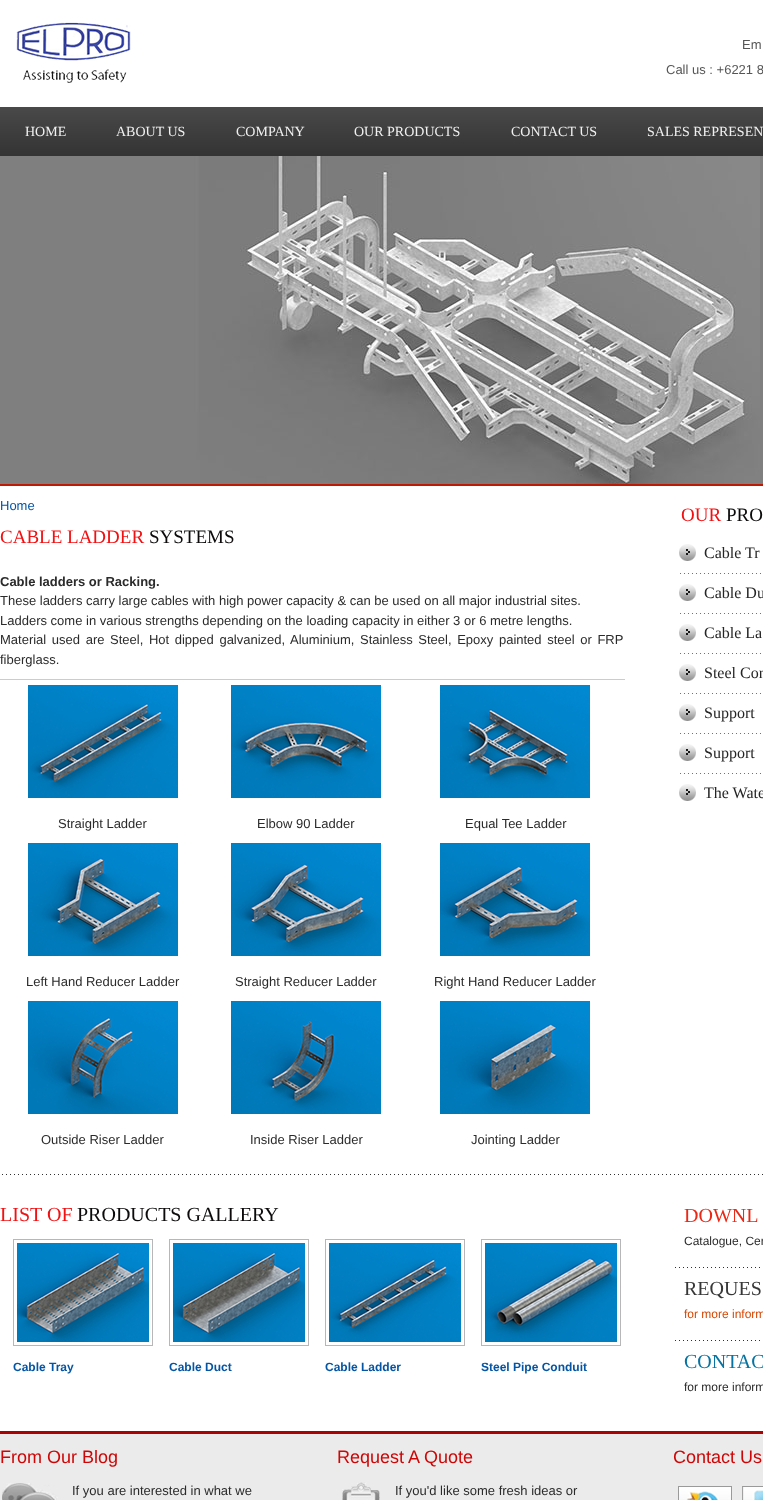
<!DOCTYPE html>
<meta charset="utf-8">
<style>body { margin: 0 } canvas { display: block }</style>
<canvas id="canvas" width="763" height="1500"></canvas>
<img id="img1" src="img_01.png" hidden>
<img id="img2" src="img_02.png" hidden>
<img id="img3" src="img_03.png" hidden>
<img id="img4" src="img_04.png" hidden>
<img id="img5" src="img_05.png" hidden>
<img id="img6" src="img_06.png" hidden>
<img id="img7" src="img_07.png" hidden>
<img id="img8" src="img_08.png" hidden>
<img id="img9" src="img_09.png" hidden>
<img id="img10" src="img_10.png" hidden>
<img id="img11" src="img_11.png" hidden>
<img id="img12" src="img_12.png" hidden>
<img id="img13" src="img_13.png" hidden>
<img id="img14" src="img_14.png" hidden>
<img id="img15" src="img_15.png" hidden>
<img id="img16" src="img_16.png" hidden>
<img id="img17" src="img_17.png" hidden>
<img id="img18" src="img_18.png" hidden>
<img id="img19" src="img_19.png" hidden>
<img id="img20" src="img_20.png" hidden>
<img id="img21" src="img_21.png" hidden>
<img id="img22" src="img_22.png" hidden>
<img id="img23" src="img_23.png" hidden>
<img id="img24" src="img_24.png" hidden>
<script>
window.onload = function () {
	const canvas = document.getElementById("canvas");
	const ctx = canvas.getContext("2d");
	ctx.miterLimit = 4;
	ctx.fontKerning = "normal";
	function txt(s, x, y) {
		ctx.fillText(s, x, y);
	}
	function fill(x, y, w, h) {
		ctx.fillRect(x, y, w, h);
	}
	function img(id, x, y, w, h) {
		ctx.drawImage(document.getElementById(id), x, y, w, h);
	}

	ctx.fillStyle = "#FFFFFF";
	fill(0, 0, 763, 1500);
	img("img1", 16, 22, 115, 61);
	img("img2", 0, 107, 763, 49);
	ctx.fillStyle = "#BE1903";
	fill(0, 484, 763, 2);
	img("img3", 0, 156, 763, 328);
	ctx.fillStyle = "#CCCCCC";
	fill(0, 679, 625, 1);
	img("img4", 28, 685, 150, 113);
	img("img5", 231, 685, 150, 113);
	img("img6", 440, 685, 150, 113);
	img("img7", 28, 843, 150, 113);
	img("img8", 231, 843, 150, 113);
	img("img9", 440, 843, 150, 113);
	img("img10", 28, 1001, 150, 113);
	img("img11", 231, 1001, 150, 113);
	img("img12", 440, 1001, 150, 113);
	img("img13", 680, 573, 81, 1);
	img("img14", 679, 544, 17, 17);
	img("img13", 680, 613, 81, 1);
	img("img14", 679, 584, 17, 17);
	img("img13", 680, 653, 81, 1);
	img("img14", 679, 624, 17, 17);
	img("img13", 680, 693, 81, 1);
	img("img14", 679, 664, 17, 17);
	img("img13", 680, 733, 81, 1);
	img("img14", 679, 704, 17, 17);
	img("img13", 680, 773, 81, 1);
	img("img14", 679, 744, 17, 17);
	img("img14", 679, 784, 17, 17);
	img("img15", 2, 1174, 761, 1);
	ctx.strokeStyle = "#B7B7B9";
	ctx.strokeRect(13.5, 1239.5, 139, 106);
	img("img16", 17, 1243, 132, 99);
	ctx.strokeRect(169.5, 1239.5, 139, 106);
	img("img17", 173, 1243, 132, 99);
	ctx.strokeRect(325.5, 1239.5, 139, 106);
	img("img18", 329, 1243, 132, 99);
	ctx.strokeRect(481.5, 1239.5, 139, 106);
	img("img19", 485, 1243, 132, 99);
	img("img20", 675, 1267, 85, 1);
	img("img20", 675, 1340, 85, 1);
	ctx.fillStyle = "#EBEBEB";
	fill(0, 1434, 763, 66);
	ctx.fillStyle = "#A90303";
	fill(0, 1431, 763, 3);
	img("img21", 2, 1483, 56, 17);
	img("img22", 342, 1482, 38, 18);
	img("img23", 678, 1486, 54, 14);
	img("img24", 742, 1486, 21, 14);
	ctx.font = "13px Liberation Sans";
	ctx.fillStyle = "#565656";
	txt("Em", 742, 49);
	txt("Call us : +6221 8", 666, 74);
	ctx.font = "14px Liberation Serif";
	ctx.fillStyle = "#F0F0F0";
	txt("HOME", 25, 136);
	txt("ABOUT US", 116, 136);
	txt("COMPANY", 236, 136);
	txt("OUR PRODUCTS", 354, 136);
	txt("CONTACT US", 511, 136);
	txt("SALES REPRESEN", 647, 136);
	ctx.font = "13px Liberation Sans";
	ctx.fillStyle = "#0455A4";
	txt("Home", 0, 510);
	ctx.font = "19px Liberation Serif";
	ctx.fillStyle = "#F21012";
	txt("CABLE LADDER", 0, 543);
	ctx.fillStyle = "#0C0A0B";
	txt("SYSTEMS", 149, 543);
	ctx.font = "bold 13px Liberation Sans";
	ctx.fillStyle = "#2B2B2B";
	txt("Cable ladders or Racking.", 0, 586);
	ctx.font = "13px Liberation Sans";
	txt("These ladders carry large cables with high power capacity & can be used on all major industrial sites.", 0, 605);
	txt("Ladders come in various strengths depending on the loading capacity in either 3 or 6 metre lengths.", 0, 625);
	ctx.wordSpacing = "2px";
	txt("Material used are Steel, Hot dipped galvanized, Aluminium, Stainless Steel, Epoxy painted steel or FRP", 0, 644);
	ctx.wordSpacing = "0px";
	txt("fiberglass.", 0, 664);
	txt("Straight Ladder", 58, 828);
	txt("Elbow 90 Ladder", 257, 828);
	txt("Equal Tee Ladder", 465, 828);
	txt("Left Hand Reducer Ladder", 26, 986);
	txt("Straight Reducer Ladder", 235, 986);
	txt("Right Hand Reducer Ladder", 434, 986);
	txt("Outside Riser Ladder", 41, 1144);
	txt("Inside Riser Ladder", 250, 1144);
	txt("Jointing Ladder", 471, 1144);
	ctx.font = "19px Liberation Serif";
	ctx.fillStyle = "#F21012";
	txt("OUR", 681, 521);
	ctx.fillStyle = "#0C0A0B";
	txt("PRO", 726, 521);
	ctx.font = "16px Liberation Serif";
	ctx.fillStyle = "#252525";
	txt("Cable Tr", 704, 558);
	txt("Cable Du", 704, 598);
	txt("Cable La", 704, 638);
	txt("Steel Con", 704, 678);
	txt("Support", 704, 718);
	txt("Support", 704, 758);
	txt("The Wate", 704, 798);
	ctx.font = "20px Liberation Serif";
	ctx.fillStyle = "#F21012";
	txt("LIST", 0, 1221);
	txt("OF", 47, 1221);
	ctx.fillStyle = "#0C0A0B";
	txt("PRODUCTS GALLERY", 77, 1221);
	ctx.font = "bold 12px Liberation Sans";
	ctx.fillStyle = "#0455A4";
	txt("Cable Tray", 13, 1371);
	txt("Cable Duct", 169, 1371);
	txt("Cable Ladder", 325, 1371);
	txt("Steel Pipe Conduit", 481, 1371);
	ctx.font = "20px Liberation Serif";
	ctx.fillStyle = "#EB2816";
	txt("DOWNL", 684, 1222);
	ctx.font = "12px Liberation Sans";
	ctx.fillStyle = "#2B2B2B";
	txt("Catalogue, Cer", 684, 1245);
	ctx.font = "20px Liberation Serif";
	ctx.fillStyle = "#373737";
	txt("REQUES", 684, 1295);
	ctx.font = "12px Liberation Sans";
	ctx.fillStyle = "#D74804";
	txt("for more inform", 684, 1318);
	ctx.font = "20px Liberation Serif";
	ctx.fillStyle = "#0773A2";
	txt("CONTAC", 684, 1368);
	ctx.font = "12px Liberation Sans";
	ctx.fillStyle = "#2B2B2B";
	txt("for more inform", 684, 1391);
	ctx.font = "18px Liberation Sans";
	ctx.fillStyle = "#CE0606";
	txt("From Our Blog", 0, 1463);
	ctx.font = "13px Liberation Sans";
	ctx.fillStyle = "#2B2B2B";
	txt("If you are interested in what we", 72, 1495);
	ctx.font = "18px Liberation Sans";
	ctx.fillStyle = "#CE0606";
	txt("Request A Quote", 337, 1463);
	ctx.font = "13px Liberation Sans";
	ctx.fillStyle = "#2B2B2B";
	txt("If you'd like some fresh ideas or", 395, 1495);
	ctx.font = "18px Liberation Sans";
	ctx.fillStyle = "#CE0606";
	txt("Contact Us", 673, 1463);
};
</script>
